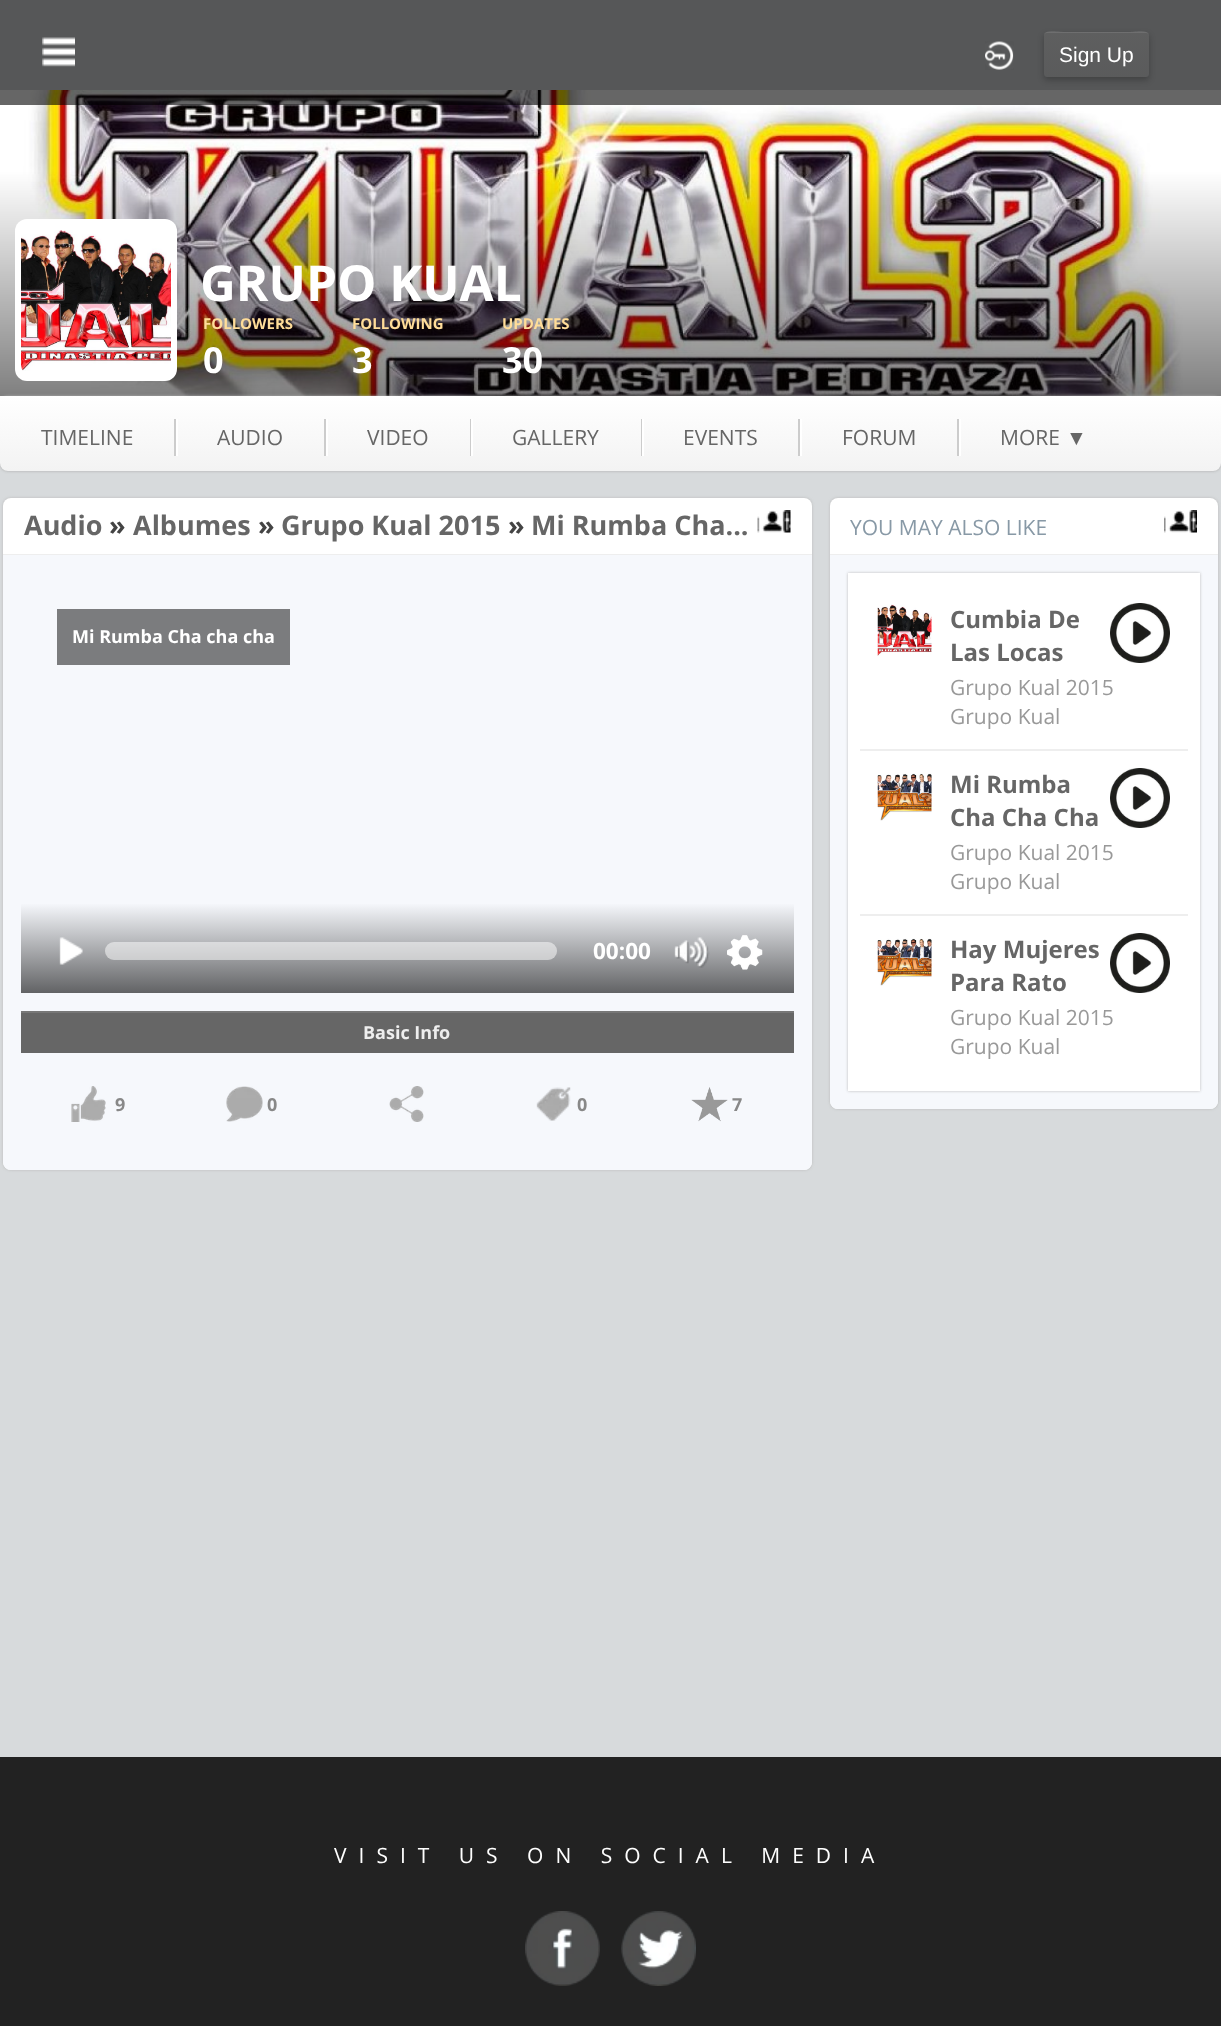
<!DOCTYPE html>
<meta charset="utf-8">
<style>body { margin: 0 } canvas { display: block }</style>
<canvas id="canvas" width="1221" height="2026"></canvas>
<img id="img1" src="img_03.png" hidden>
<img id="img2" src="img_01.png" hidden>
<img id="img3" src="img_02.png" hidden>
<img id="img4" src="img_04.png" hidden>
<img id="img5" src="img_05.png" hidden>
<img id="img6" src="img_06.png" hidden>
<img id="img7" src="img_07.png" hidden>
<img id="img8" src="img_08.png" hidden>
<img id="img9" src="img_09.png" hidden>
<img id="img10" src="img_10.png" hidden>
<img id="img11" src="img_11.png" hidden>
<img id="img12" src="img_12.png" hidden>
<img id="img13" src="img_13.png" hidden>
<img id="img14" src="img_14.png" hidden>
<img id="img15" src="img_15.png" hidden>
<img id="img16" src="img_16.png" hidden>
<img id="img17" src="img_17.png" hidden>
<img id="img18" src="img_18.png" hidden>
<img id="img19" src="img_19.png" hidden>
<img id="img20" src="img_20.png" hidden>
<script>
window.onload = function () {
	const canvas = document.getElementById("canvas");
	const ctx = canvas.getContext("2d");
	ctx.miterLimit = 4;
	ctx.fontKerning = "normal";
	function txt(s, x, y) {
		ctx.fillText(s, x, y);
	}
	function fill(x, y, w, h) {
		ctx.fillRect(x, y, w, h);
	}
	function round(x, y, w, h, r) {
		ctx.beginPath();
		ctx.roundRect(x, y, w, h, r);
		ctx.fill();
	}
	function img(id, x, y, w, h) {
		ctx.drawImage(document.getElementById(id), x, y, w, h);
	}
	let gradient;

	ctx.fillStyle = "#D7DADC";
	fill(0, 0, 1221, 2026);
	img("img1", 0, 90, 1221, 306);
	ctx.fillStyle = "rgba(0, 0, 0, 0.6)";
	fill(0, 0, 1221, 105);
	img("img2", 42, 37, 33, 30);
	img("img3", 985, 41, 29, 29);
	ctx.save();
	ctx.beginPath();
	ctx.moveTo(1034, 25);
	ctx.lineTo(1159, 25);
	ctx.lineTo(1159, 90);
	ctx.lineTo(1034, 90);
	ctx.closePath();
	ctx.moveTo(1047, 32);
	ctx.lineTo(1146, 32);
	ctx.bezierCurveTo(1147.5, 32, 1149, 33.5, 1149, 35);
	ctx.lineTo(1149, 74);
	ctx.bezierCurveTo(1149, 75.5, 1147.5, 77, 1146, 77);
	ctx.lineTo(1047, 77);
	ctx.bezierCurveTo(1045.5, 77, 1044, 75.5, 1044, 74);
	ctx.lineTo(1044, 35);
	ctx.bezierCurveTo(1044, 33.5, 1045.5, 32, 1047, 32);
	ctx.closePath();
	ctx.clip("evenodd");
	ctx.fillStyle = "rgba(0, 0, 0, 0.25)";
	ctx.filter = "blur(3px)";
	ctx.beginPath();
	ctx.roundRect(1044, 35, 105, 45, 3);
	ctx.fill();
	ctx.filter = "none";
	ctx.restore();
	gradient = ctx.createLinearGradient(1097, 31, 1097, 77);
	gradient.addColorStop(0, "rgba(100, 100, 100, 0.6)");
	gradient.addColorStop(1, "rgba(100, 100, 100, 0.3)");
	ctx.fillStyle = gradient;
	round(1044, 32, 105, 45, 3);
	ctx.fillStyle = "rgba(255, 255, 255, 0.1)";
	ctx.beginPath();
	ctx.moveTo(1047, 33);
	ctx.lineTo(1146, 33);
	ctx.bezierCurveTo(1148, 33, 1149, 34, 1149, 36);
	ctx.bezierCurveTo(1149, 28, 1132, 32, 1130, 32);
	ctx.lineTo(1064, 32);
	ctx.bezierCurveTo(1061, 32, 1044, 28, 1044, 36);
	ctx.bezierCurveTo(1044, 34, 1045, 33, 1047, 33);
	ctx.closePath();
	ctx.fill();
	ctx.fillStyle = "#FFFFFF";
	round(15, 219, 162, 162, 12);
	img("img4", 21, 230, 150, 141);
	ctx.fillStyle = "#AAAAAA";
	ctx.filter = "blur(1.5px)";
	ctx.beginPath();
	ctx.roundRect(0, 396, 1221, 75, 8);
	ctx.fill();
	ctx.filter = "none";
	gradient = ctx.createLinearGradient(611, 396, 611, 471);
	gradient.addColorStop(0, "#FFFFFF");
	gradient.addColorStop(1, "#F3F3F3");
	ctx.fillStyle = gradient;
	ctx.beginPath();
	ctx.roundRect(0, 396, 1221, 75, [0, 0, 8, 8]);
	ctx.fill();
	ctx.fillStyle = "#CCCCCC";
	fill(174, 419, 2, 37);
	fill(324, 419, 2, 37);
	ctx.fillStyle = "#FFFFFF";
	fill(176, 419, 2, 37);
	ctx.fillStyle = "#CCCCCC";
	fill(470, 419, 1, 37);
	ctx.fillStyle = "#FFFFFF";
	fill(326, 419, 2, 37);
	ctx.fillStyle = "#CCCCCC";
	fill(641, 419, 1, 37);
	ctx.fillStyle = "#FFFFFF";
	fill(471, 419, 2, 37);
	ctx.fillStyle = "#CCCCCC";
	fill(798, 419, 2, 37);
	ctx.fillStyle = "#FFFFFF";
	fill(642, 419, 2, 37);
	ctx.fillStyle = "#CCCCCC";
	fill(957, 419, 2, 37);
	ctx.fillStyle = "#FFFFFF";
	fill(800, 419, 2, 37);
	fill(959, 419, 2, 37);
	ctx.fillStyle = "#BBBBBB";
	ctx.filter = "blur(1.5px)";
	ctx.beginPath();
	ctx.roundRect(3, 498, 809, 672, 8);
	ctx.fill();
	ctx.filter = "none";
	ctx.fillStyle = "#FFFFFF";
	round(3, 498, 809, 672, 8);
	ctx.fillStyle = "#EEEEEE";
	fill(3, 554, 809, 1);
	img("img5", 757, 510, 34, 23);
	ctx.fillStyle = "#F6F8FC";
	ctx.beginPath();
	ctx.roundRect(3, 555, 809, 615, [0, 0, 8, 8]);
	ctx.fill();
	ctx.fillStyle = "#7B7C7E";
	fill(57, 609, 233, 56);
	gradient = ctx.createLinearGradient(407, 903, 407, 993);
	gradient.addColorStop(0, "#F6F8FC");
	gradient.addColorStop(1, "#626365");
	ctx.fillStyle = gradient;
	fill(21, 904, 773, 89);
	img("img6", 59, 937, 24, 28);
	ctx.fillStyle = "rgba(255, 255, 255, 0.3)";
	round(105, 942, 452, 18, 9);
	round(105, 942, 452, 18, 9);
	img("img7", 674, 937, 36, 31);
	img("img8", 727, 935, 36, 35);
	ctx.fillStyle = "#666666";
	fill(21, 1013, 773, 40);
	ctx.fillStyle = "#777777";
	fill(21, 1011, 773, 2);
	img("img9", 71, 1086, 35, 36);
	img("img10", 226, 1086, 37, 36);
	img("img11", 389, 1086, 35, 36);
	img("img12", 536, 1087, 35, 34);
	img("img13", 691, 1087, 37, 35);
	ctx.fillStyle = "#BBBBBB";
	ctx.filter = "blur(1.5px)";
	ctx.beginPath();
	ctx.roundRect(830, 498, 388, 611, 8);
	ctx.fill();
	ctx.filter = "none";
	ctx.fillStyle = "#FFFFFF";
	round(830, 498, 388, 611, 8);
	ctx.fillStyle = "#EEEEEE";
	fill(830, 554, 388, 1);
	img("img14", 1164, 510, 33, 23);
	ctx.fillStyle = "#F6F8FC";
	ctx.beginPath();
	ctx.roundRect(830, 555, 388, 554, [0, 0, 8, 8]);
	ctx.fill();
	ctx.fillStyle = "#BBBBBB";
	ctx.filter = "blur(1.5px)";
	ctx.beginPath();
	ctx.rect(848, 573, 352, 518);
	ctx.fill();
	ctx.filter = "none";
	ctx.fillStyle = "#FFFFFF";
	fill(848, 573, 352, 518);
	ctx.fillStyle = "#EEEEEE";
	fill(860, 749, 328, 2);
	img("img15", 877, 604, 55, 52);
	img("img16", 1110, 603, 60, 60);
	fill(860, 914, 328, 2);
	img("img17", 877, 773, 55, 48);
	img("img16", 1110, 768, 60, 60);
	img("img18", 877, 938, 55, 48);
	img("img16", 1110, 933, 60, 60);
	ctx.fillStyle = "#222222";
	fill(0, 1757, 1221, 269);
	img("img19", 525, 1911, 75, 75);
	img("img20", 621, 1911, 75, 75);
	ctx.font = "21px Liberation Sans";
	ctx.fillStyle = "#FFFFFF";
	txt("Sign Up", 1059, 62);
	ctx.font = "bold 49.5px Open Sans";
	txt("GRUPO KUAL", 200, 301);
	ctx.font = "bold 15px Open Sans";
	ctx.fillStyle = "#FFDD99";
	txt("FOLLOWERS", 203, 329);
	ctx.font = "bold 36px Open Sans";
	ctx.fillStyle = "#FFFFFF";
	txt("0", 203, 373);
	ctx.font = "bold 15px Open Sans";
	ctx.fillStyle = "#FFDD99";
	txt("FOLLOWING", 352, 329);
	ctx.font = "bold 36px Open Sans";
	ctx.fillStyle = "#FFFFFF";
	txt("3", 352, 373);
	ctx.font = "bold 15px Open Sans";
	ctx.fillStyle = "#FFDD99";
	txt("UPDATES", 502, 329);
	ctx.font = "bold 36px Open Sans";
	ctx.fillStyle = "#FFFFFF";
	txt("30", 502, 373);
	ctx.font = "21px Open Sans";
	ctx.fillStyle = "#666666";
	txt("TIMELINE", 41, 445);
	txt("AUDIO", 217, 445);
	txt("VIDEO", 367, 445);
	txt("GALLERY", 512, 445);
	txt("EVENTS", 683, 445);
	txt("FORUM", 842, 445);
	txt("MORE", 1000, 445);
	ctx.font = "21px Liberation Sans";
	txt("▼", 1066, 445);
	ctx.font = "bold 27px Open Sans";
	txt("Audio", 24, 535);
	ctx.fillStyle = "#444444";
	txt("»", 109, 535);
	ctx.fillStyle = "#666666";
	txt("Albumes", 133, 535);
	ctx.fillStyle = "#444444";
	txt("»", 258, 535);
	ctx.fillStyle = "#666666";
	txt("Grupo Kual 2015", 281, 535);
	ctx.fillStyle = "#444444";
	txt("»", 508, 535);
	ctx.fillStyle = "#666666";
	txt("Mi Rumba Cha...", 531, 535);
	ctx.font = "bold 18px Open Sans";
	ctx.fillStyle = "#FFFFFF";
	txt("Mi Rumba Cha cha cha", 72, 643);
	ctx.font = "bold 22.5px Open Sans";
	txt("00:00", 593, 959);
	ctx.font = "bold 18px Open Sans";
	ctx.fillStyle = "#EEEEEE";
	txt("Basic Info", 363, 1039);
	ctx.fillStyle = "#888888";
	txt("9", 115, 1111);
	txt("0", 267, 1111);
	txt("0", 577, 1111);
	txt("7", 732, 1111);
	ctx.font = "21px Open Sans";
	ctx.fillStyle = "#8899A6";
	txt("YOU MAY ALSO LIKE", 850, 535);
	ctx.font = "bold 24px Open Sans";
	ctx.fillStyle = "#666666";
	txt("Cumbia De", 950, 628);
	txt("Las Locas", 950, 661);
	ctx.font = "21px Open Sans";
	ctx.fillStyle = "#999999";
	txt("Grupo Kual 2015", 950, 695);
	txt("Grupo Kual", 950, 724);
	ctx.font = "bold 24px Open Sans";
	ctx.fillStyle = "#666666";
	txt("Mi Rumba", 950, 793);
	txt("Cha Cha Cha", 950, 826);
	ctx.font = "21px Open Sans";
	ctx.fillStyle = "#999999";
	txt("Grupo Kual 2015", 950, 860);
	txt("Grupo Kual", 950, 889);
	ctx.font = "bold 24px Open Sans";
	ctx.fillStyle = "#666666";
	txt("Hay Mujeres", 950, 958);
	txt("Para Rato", 950, 991);
	ctx.font = "21px Open Sans";
	ctx.fillStyle = "#999999";
	txt("Grupo Kual 2015", 950, 1025);
	txt("Grupo Kual", 950, 1054);
	ctx.letterSpacing = "12px";
	ctx.fillStyle = "#FFFFFF";
	txt("VISIT US ON SOCIAL MEDIA", 334, 1863);
};
</script>
